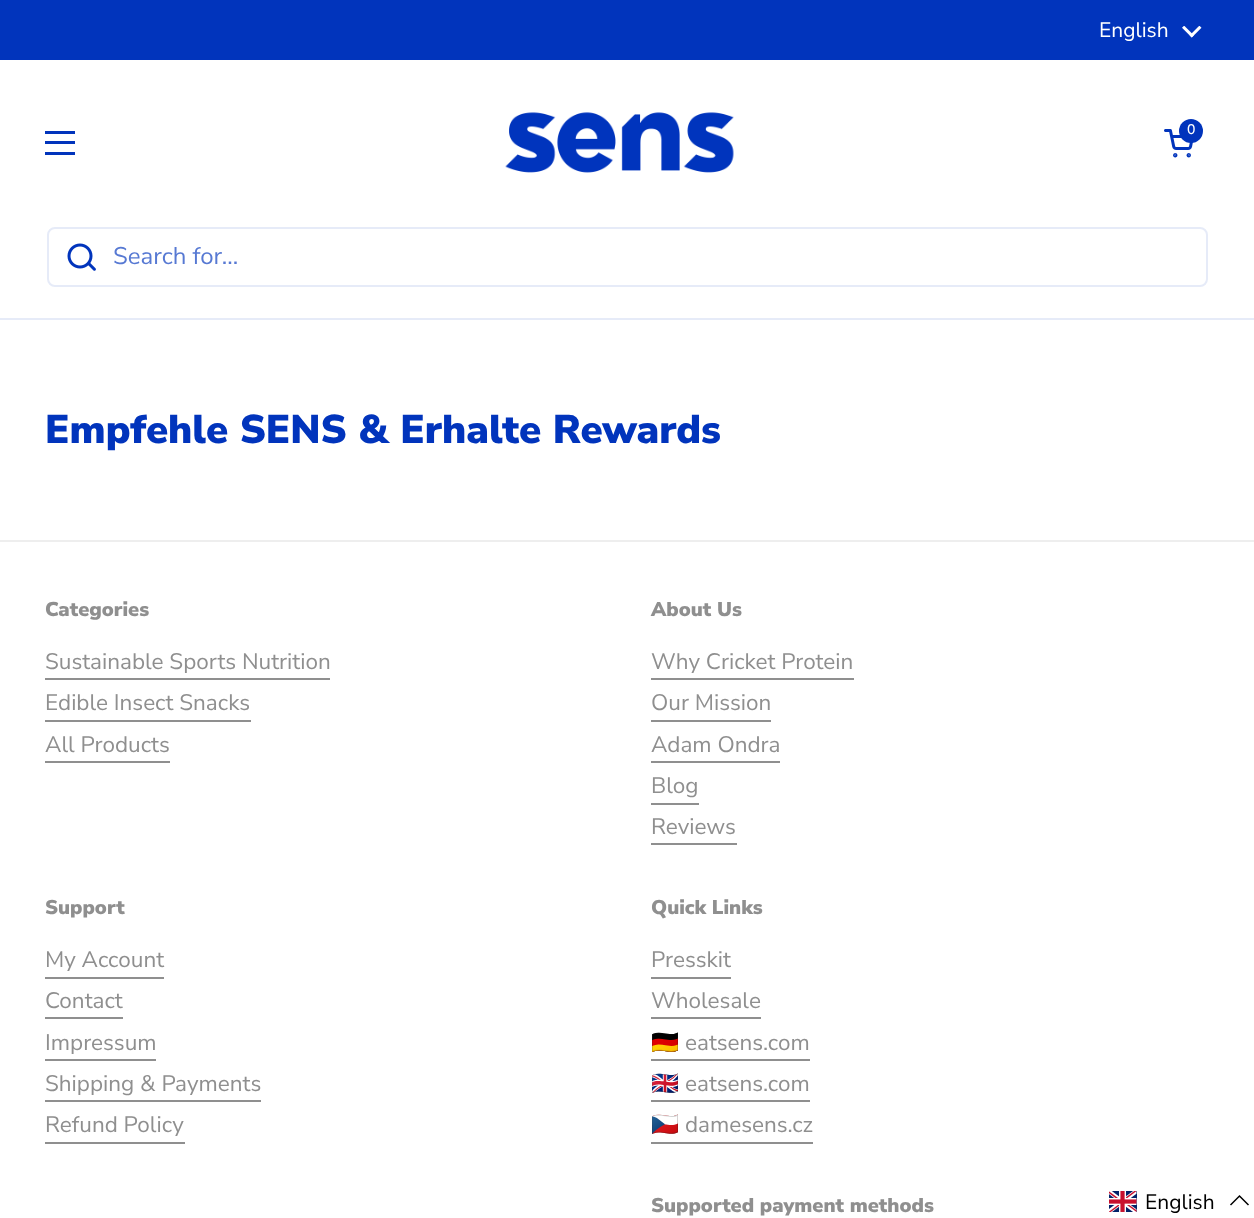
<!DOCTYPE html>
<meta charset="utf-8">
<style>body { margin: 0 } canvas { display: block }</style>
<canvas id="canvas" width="1254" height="1218"></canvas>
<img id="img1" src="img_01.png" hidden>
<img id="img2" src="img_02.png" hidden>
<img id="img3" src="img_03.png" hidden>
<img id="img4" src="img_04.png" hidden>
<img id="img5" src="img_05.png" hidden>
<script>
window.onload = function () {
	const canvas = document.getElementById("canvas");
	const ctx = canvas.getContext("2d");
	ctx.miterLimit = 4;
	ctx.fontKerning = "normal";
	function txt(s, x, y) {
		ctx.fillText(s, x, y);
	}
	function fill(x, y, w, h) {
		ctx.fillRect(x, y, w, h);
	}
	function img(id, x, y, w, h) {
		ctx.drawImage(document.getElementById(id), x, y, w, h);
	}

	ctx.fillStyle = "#FFFFFF";
	fill(0, 0, 1254, 1218);
	ctx.fillStyle = "#0134BC";
	fill(0, 0, 1254, 60);
	img("img1", 1182, 26, 20, 12);
	img("img2", 505, 112, 229, 61);
	img("img3", 1164, 129, 29, 29);
	ctx.beginPath();
	ctx.arc(1191, 131, 12, 0, Math.PI * 2);
	ctx.fill();
	fill(45, 131, 30, 3);
	fill(45, 141, 30, 3);
	fill(45, 152, 30, 3);
	ctx.fillStyle = "#E6EBF8";
	fill(0, 318, 1254, 2);
	ctx.beginPath();
	ctx.roundRect(48, 228, 1159, 58, 7);
	ctx.strokeStyle = "#E6EBF8";
	ctx.lineWidth = 2;
	ctx.stroke();
	img("img4", 67, 243, 29, 28);
	ctx.fillStyle = "#EEEEEE";
	fill(0, 540, 1254, 2);
	ctx.fillStyle = "#8F8F8F";
	fill(45, 678, 285, 2);
	fill(45, 720, 206, 2);
	fill(45, 761, 125, 2);
	fill(651, 678, 203, 2);
	fill(651, 720, 120, 2);
	fill(651, 761, 129, 2);
	fill(651, 803, 48, 2);
	fill(651, 843, 86, 2);
	fill(45, 977, 119, 2);
	fill(45, 1017, 78, 2);
	fill(45, 1059, 111, 2);
	fill(45, 1100, 216, 2);
	fill(45, 1142, 140, 2);
	fill(651, 977, 80, 2);
	fill(651, 1017, 110, 2);
	fill(651, 1059, 159, 2);
	fill(651, 1100, 159, 2);
	fill(651, 1142, 162, 2);
	img("img5", 1109, 1191, 28, 21);
	ctx.beginPath();
	ctx.moveTo(1248.5, 1205);
	ctx.lineTo(1239.5, 1196);
	ctx.lineTo(1230.5, 1205);
	ctx.strokeStyle = "#000000";
	ctx.lineWidth = 1.5;
	ctx.stroke();
	ctx.font = "21px Nunito Sans";
	ctx.fillStyle = "#FFFFFF";
	txt("English", 1099, 37);
	ctx.font = "500 14px Nunito Sans";
	txt("0", 1187, 134);
	ctx.font = "24px Nunito Sans";
	ctx.fillStyle = "#5779D3";
	txt("Search for...", 113, 264);
	ctx.font = "900 40px Nunito Sans";
	ctx.fillStyle = "#0134BC";
	txt("Empfehle SENS & Erhalte Rewards", 45, 443);
	ctx.font = "900 20px Nunito Sans";
	ctx.fillStyle = "#8F8F8F";
	txt("Categories", 45, 616);
	ctx.font = "22.5px Nunito Sans";
	txt("Sustainable Sports Nutrition", 45, 669);
	txt("Edible Insect Snacks", 45, 710);
	txt("All Products", 45, 752);
	ctx.font = "900 20px Nunito Sans";
	txt("About Us", 651, 616);
	ctx.font = "22.5px Nunito Sans";
	txt("Why Cricket Protein", 651, 669);
	txt("Our Mission", 651, 710);
	txt("Adam Ondra", 651, 752);
	txt("Blog", 651, 793);
	txt("Reviews", 651, 834);
	ctx.font = "900 20px Nunito Sans";
	txt("Support", 45, 914);
	ctx.font = "22.5px Nunito Sans";
	txt("My Account", 45, 967);
	txt("Contact", 45, 1008);
	txt("Impressum", 45, 1050);
	txt("Shipping & Payments", 45, 1091);
	txt("Refund Policy", 45, 1132);
	ctx.font = "900 20px Nunito Sans";
	txt("Quick Links", 651, 914);
	ctx.font = "22.5px Nunito Sans";
	txt("Presskit", 651, 967);
	txt("Wholesale", 651, 1008);
	ctx.font = "22.5px Noto Color Emoji";
	txt("🇩🇪", 651, 1050);
	ctx.font = "22.5px Nunito Sans";
	txt("eatsens.com", 685, 1050);
	ctx.font = "22.5px Noto Color Emoji";
	txt("🇬🇧", 651, 1091);
	ctx.font = "22.5px Nunito Sans";
	txt("eatsens.com", 685, 1091);
	ctx.font = "22.5px Noto Color Emoji";
	txt("🇨🇿", 651, 1132);
	ctx.font = "22.5px Nunito Sans";
	txt("damesens.cz", 685, 1132);
	ctx.font = "900 20px Nunito Sans";
	txt("Supported payment methods", 651, 1212);
	ctx.font = "21px Nunito Sans";
	ctx.fillStyle = "#000000";
	txt("English", 1145, 1209);
};
</script>
